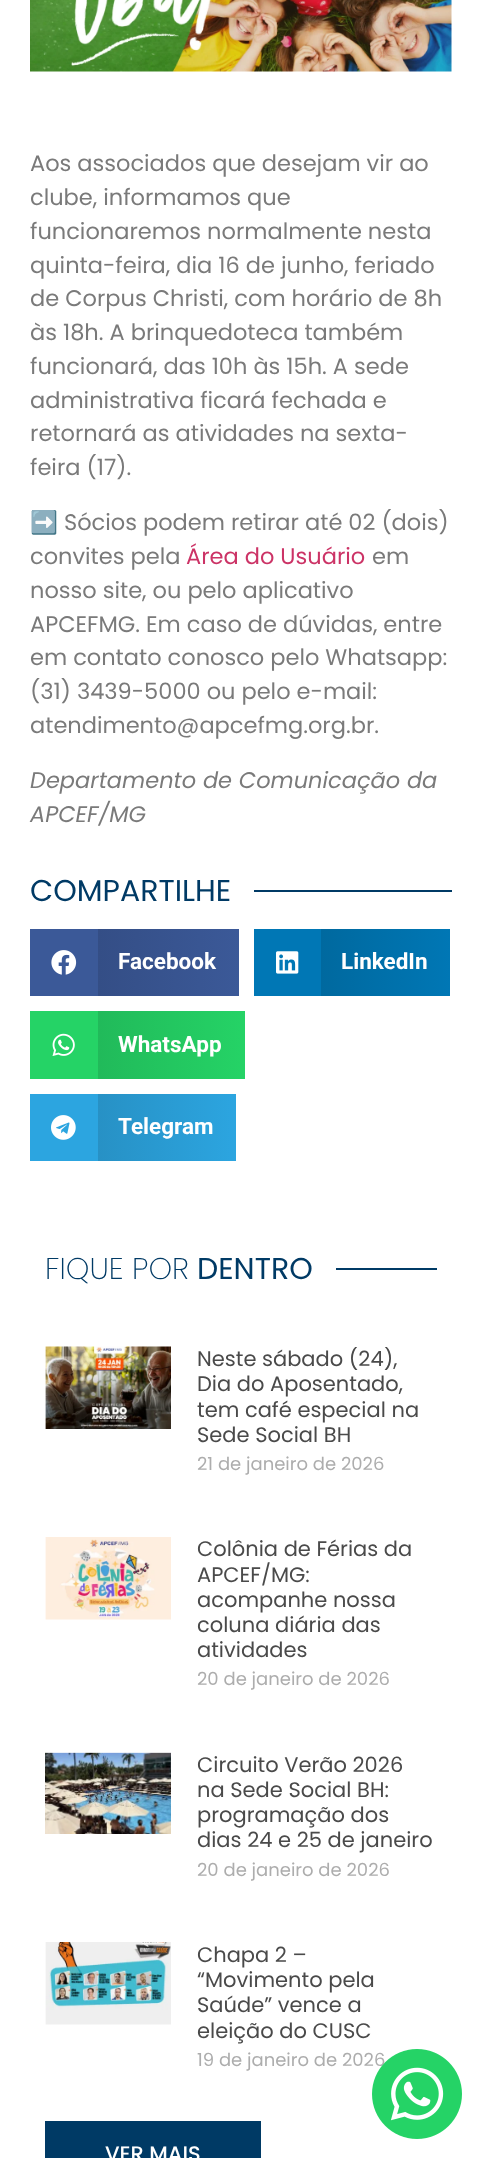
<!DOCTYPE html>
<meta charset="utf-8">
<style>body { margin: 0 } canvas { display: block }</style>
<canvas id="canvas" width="481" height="2158"></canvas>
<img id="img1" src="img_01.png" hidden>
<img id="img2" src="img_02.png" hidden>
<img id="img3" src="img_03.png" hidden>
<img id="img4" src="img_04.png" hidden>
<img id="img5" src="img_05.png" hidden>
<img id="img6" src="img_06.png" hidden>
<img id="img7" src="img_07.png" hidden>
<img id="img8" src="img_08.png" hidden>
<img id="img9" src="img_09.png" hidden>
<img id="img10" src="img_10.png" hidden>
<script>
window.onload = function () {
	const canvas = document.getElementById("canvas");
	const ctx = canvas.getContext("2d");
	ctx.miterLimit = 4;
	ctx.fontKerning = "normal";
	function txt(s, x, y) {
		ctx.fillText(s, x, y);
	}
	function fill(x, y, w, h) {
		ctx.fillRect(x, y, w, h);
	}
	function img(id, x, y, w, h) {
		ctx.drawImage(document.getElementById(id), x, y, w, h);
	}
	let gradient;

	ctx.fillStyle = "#FFFFFF";
	fill(0, 0, 481, 2158);
	img("img1", 30, 0, 422, 72);
	ctx.fillStyle = "#003A65";
	fill(254, 890, 198, 2);
	ctx.fillStyle = "#3B5998";
	fill(30, 929, 68, 67);
	img("img2", 51, 950, 26, 25);
	gradient = ctx.createLinearGradient(98, 962, 239, 962);
	gradient.addColorStop(0, "#344E86");
	gradient.addColorStop(1, "#3B5998");
	ctx.fillStyle = gradient;
	fill(98, 929, 141, 67);
	ctx.fillStyle = "#0077B5";
	fill(254, 929, 67, 67);
	img("img3", 276, 951, 23, 23);
	gradient = ctx.createLinearGradient(321, 962, 450, 962);
	gradient.addColorStop(0, "#00699F");
	gradient.addColorStop(1, "#0077B5");
	ctx.fillStyle = gradient;
	fill(321, 929, 129, 67);
	ctx.fillStyle = "#25D366";
	fill(30, 1011, 68, 68);
	img("img4", 52, 1033, 23, 23);
	gradient = ctx.createLinearGradient(98, 1045, 245, 1045);
	gradient.addColorStop(0, "#21BA5A");
	gradient.addColorStop(1, "#25D366");
	ctx.fillStyle = gradient;
	fill(98, 1011, 147, 68);
	ctx.fillStyle = "#2CA5E0";
	fill(30, 1094, 68, 67);
	img("img5", 51, 1115, 25, 25);
	gradient = ctx.createLinearGradient(98, 1127, 236, 1127);
	gradient.addColorStop(0, "#2791C5");
	gradient.addColorStop(1, "#2CA5E0");
	ctx.fillStyle = gradient;
	fill(98, 1094, 138, 67);
	ctx.fillStyle = "#003A65";
	fill(336, 1268, 101, 2);
	img("img6", 45, 1346, 126, 83);
	img("img7", 45, 1537, 126, 83);
	img("img8", 45, 1752, 126, 82);
	img("img9", 45, 1942, 126, 83);
	fill(45, 2121, 216, 37);
	ctx.font = "22.5px Poppins";
	ctx.fillStyle = "#7A7A7A";
	txt("Aos associados que desejam vir ao", 30, 171);
	txt("clube, informamos que", 30, 205);
	txt("funcionaremos normalmente nesta", 30, 239);
	txt("quinta-feira, dia 16 de junho, feriado", 30, 273);
	txt("de Corpus Christi, com horário de 8h", 30, 306);
	txt("às 18h. A brinquedoteca também", 30, 340);
	txt("funcionará, das 10h às 15h. A sede", 30, 374);
	txt("administrativa ficará fechada e", 30, 408);
	txt("retornará as atividades na sexta-", 30, 441);
	txt("feira (17).", 30, 475);
	ctx.font = "22.5px Noto Color Emoji";
	txt("➡️", 30, 530);
	ctx.font = "22.5px Poppins";
	txt("Sócios podem retirar até 02 (dois)", 64, 530);
	txt("convites pela", 30, 564);
	ctx.fillStyle = "#CC3366";
	txt("Área do Usuário", 186, 564);
	ctx.fillStyle = "#7A7A7A";
	txt("em", 372, 564);
	txt("nosso site, ou pelo aplicativo", 30, 598);
	txt("APCEFMG. Em caso de dúvidas, entre", 30, 632);
	txt("em contato conosco pelo Whatsapp:", 30, 665);
	txt("(31) 3439-5000 ou pelo e-mail:", 30, 699);
	txt("atendimento@apcefmg.org.br.", 30, 733);
	ctx.font = "italic 22.5px Poppins";
	txt("Departamento de Comunicação da", 30, 788);
	txt("APCEF/MG", 30, 822);
	ctx.font = "30px Poppins";
	ctx.fillStyle = "#003A65";
	txt("COMPARTILHE", 30, 901);
	ctx.font = "bold 22.5px Roboto";
	ctx.fillStyle = "#FFFFFF";
	txt("Facebook", 118, 969);
	txt("LinkedIn", 341, 969);
	txt("WhatsApp", 118, 1052);
	txt("Telegram", 118, 1134);
	ctx.font = "200 30px Poppins";
	ctx.fillStyle = "#003A65";
	txt("FIQUE POR", 45, 1279);
	ctx.font = "30px Poppins";
	txt("DENTRO", 197, 1279);
	ctx.save();
	ctx.beginPath();
	ctx.rect(45, 1347, 392, 149);
	ctx.clip();
	ctx.font = "21px Poppins";
	ctx.fillStyle = "#4A4A4A";
	txt("Neste sábado (24),", 197, 1366);
	ctx.restore();
	ctx.font = "21px Poppins";
	ctx.fillStyle = "#4A4A4A";
	txt("Dia do Aposentado,", 197, 1391);
	txt("tem café especial na", 197, 1417);
	txt("Sede Social BH", 197, 1442);
	ctx.font = "18px Poppins";
	ctx.fillStyle = "#ADADAD";
	txt("21 de janeiro de 2026", 197, 1470);
	ctx.font = "21px Poppins";
	ctx.fillStyle = "#4A4A4A";
	txt("Colônia de Férias da", 197, 1556);
	txt("APCEF/MG:", 197, 1582);
	txt("acompanhe nossa", 197, 1607);
	txt("coluna diária das", 197, 1632);
	txt("atividades", 197, 1657);
	ctx.font = "18px Poppins";
	ctx.fillStyle = "#ADADAD";
	txt("20 de janeiro de 2026", 197, 1685);
	ctx.font = "21px Poppins";
	ctx.fillStyle = "#4A4A4A";
	txt("Circuito Verão 2026", 197, 1772);
	txt("na Sede Social BH:", 197, 1797);
	txt("programação dos", 197, 1822);
	txt("dias 24 e 25 de janeiro", 197, 1847);
	ctx.font = "18px Poppins";
	ctx.fillStyle = "#ADADAD";
	txt("20 de janeiro de 2026", 197, 1876);
	ctx.font = "21px Poppins";
	ctx.fillStyle = "#4A4A4A";
	txt("Chapa 2 –", 197, 1962);
	txt("“Movimento pela", 197, 1987);
	txt("Saúde” vence a", 197, 2012);
	txt("eleição do CUSC", 197, 2038);
	ctx.font = "18px Poppins";
	ctx.fillStyle = "#ADADAD";
	txt("19 de janeiro de 2026", 197, 2066);
	ctx.font = "500 21px Poppins";
	ctx.fillStyle = "#FFFFFF";
	txt("VER MAIS", 105, 2161);
	img("img10", 372, 2049, 90, 90);
};
</script>
